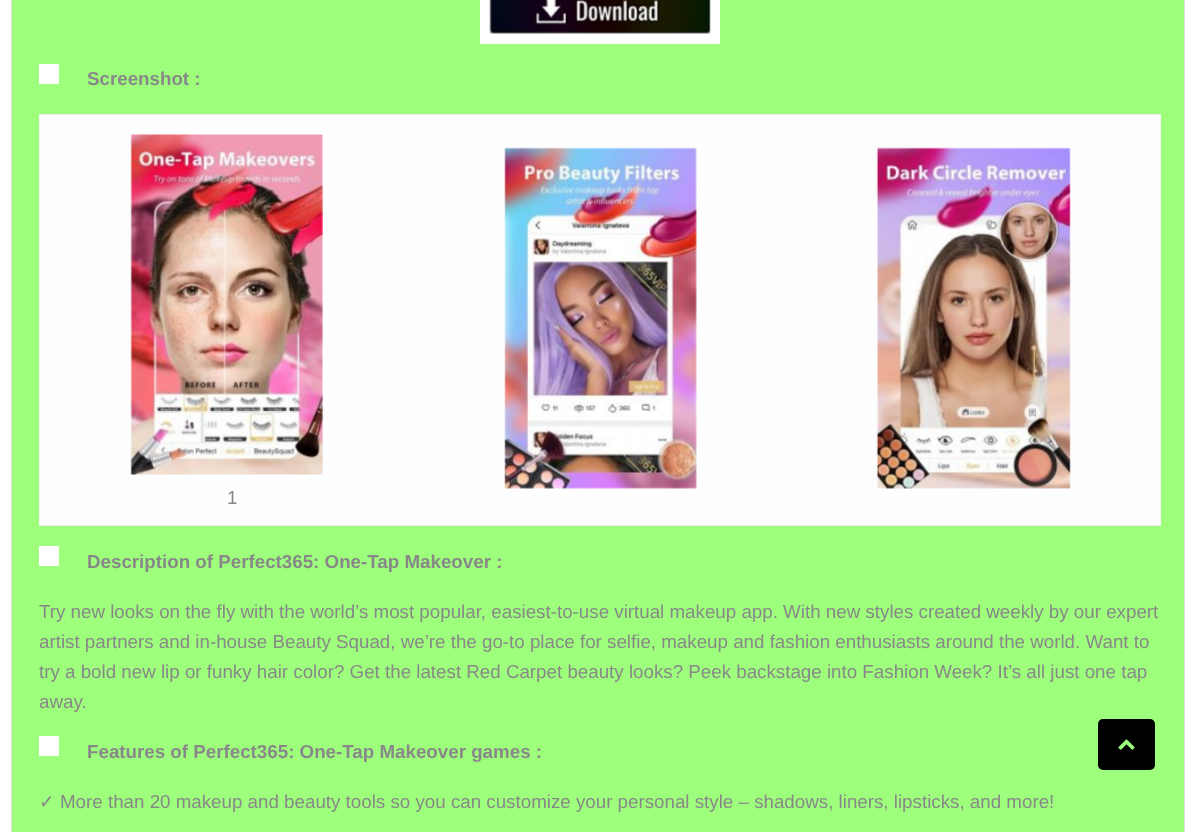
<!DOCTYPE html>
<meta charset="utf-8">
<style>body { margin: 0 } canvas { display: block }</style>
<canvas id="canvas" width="1198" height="832"></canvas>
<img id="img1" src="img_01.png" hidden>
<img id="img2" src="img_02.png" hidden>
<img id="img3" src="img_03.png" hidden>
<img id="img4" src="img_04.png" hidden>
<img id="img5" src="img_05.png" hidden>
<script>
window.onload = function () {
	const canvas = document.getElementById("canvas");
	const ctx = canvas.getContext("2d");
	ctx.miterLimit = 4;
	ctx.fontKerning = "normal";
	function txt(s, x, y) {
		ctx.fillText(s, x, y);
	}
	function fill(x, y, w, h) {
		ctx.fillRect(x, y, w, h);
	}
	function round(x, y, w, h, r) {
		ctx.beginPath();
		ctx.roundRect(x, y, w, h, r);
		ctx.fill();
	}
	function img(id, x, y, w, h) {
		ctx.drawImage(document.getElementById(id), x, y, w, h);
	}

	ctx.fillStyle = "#FFFFFF";
	fill(0, 0, 1198, 832);
	ctx.fillStyle = "#9DFF7C";
	ctx.beginPath();
	ctx.rect(11.5, -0.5, 1173, 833);
	ctx.fill();
	ctx.strokeStyle = "#DDDDDD";
	ctx.stroke();
	ctx.fillStyle = "#FFFFFF";
	fill(480, 0, 240, 44);
	img("img1", 489, 0, 222, 34);
	fill(39, 64, 20, 20);
	ctx.fillStyle = "#FEFEFE";
	fill(40, 115, 1120, 410);
	ctx.fillStyle = "#F1F1F1";
	fill(39, 114, 1122, 1);
	fill(1160, 114, 1, 412);
	fill(39, 525, 1122, 1);
	fill(39, 114, 1, 412);
	img("img2", 504, 147, 193, 342);
	img("img3", 876, 147, 195, 342);
	img("img4", 130, 134, 193, 341);
	ctx.fillStyle = "#FFFFFF";
	fill(39, 546, 20, 20);
	fill(39, 736, 20, 20);
	ctx.fillStyle = "#000000";
	round(1098, 719, 57, 51, 5);
	img("img5", 1118, 739, 17, 11);
	ctx.font = "bold 18.75px Liberation Sans";
	ctx.fillStyle = "#888888";
	txt("Screenshot :", 87, 85);
	ctx.font = "18.75px Liberation Sans";
	txt("1", 227, 504);
	ctx.font = "bold 18.75px Liberation Sans";
	txt("Description of Perfect365: One-Tap Makeover :", 87, 568);
	ctx.font = "18.75px Liberation Sans";
	txt("Try new looks on the fly with the world’s most popular, easiest-to-use virtual makeup app. With new styles created weekly by our expert", 39, 618);
	txt("artist partners and in-house Beauty Squad, we’re the go-to place for selfie, makeup and fashion enthusiasts around the world. Want to", 39, 648);
	txt("try a bold new lip or funky hair color? Get the latest Red Carpet beauty looks? Peek backstage into Fashion Week? It’s all just one tap", 39, 678);
	txt("away.", 39, 708);
	ctx.font = "bold 18.75px Liberation Sans";
	txt("Features of Perfect365: One-Tap Makeover games :", 87, 758);
	ctx.font = "18.75px DejaVu Sans";
	txt("✓", 39, 808);
	ctx.font = "18.75px Liberation Sans";
	txt("More than 20 makeup and beauty tools so you can customize your personal style – shadows, liners, lipsticks, and more!", 60, 808);
};
</script>
